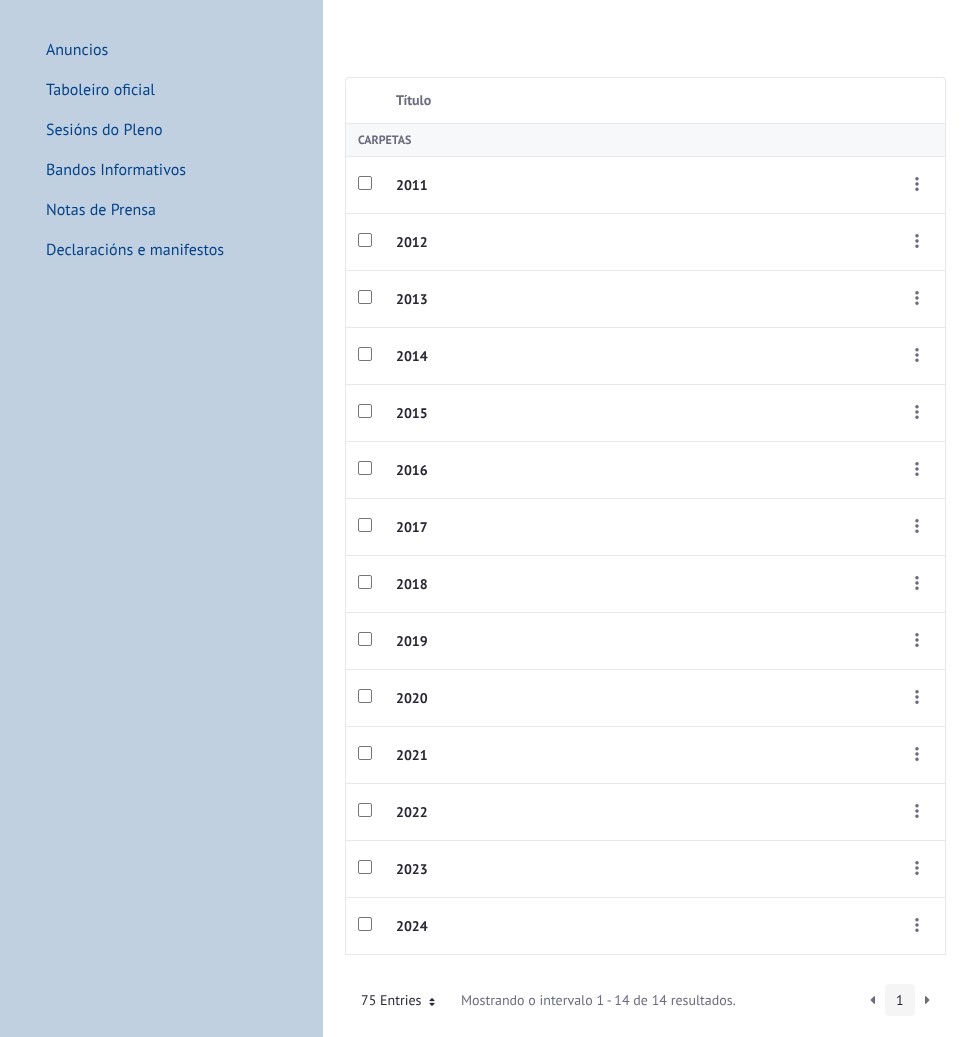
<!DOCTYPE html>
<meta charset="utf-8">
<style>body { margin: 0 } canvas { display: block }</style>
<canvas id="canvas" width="968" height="1037"></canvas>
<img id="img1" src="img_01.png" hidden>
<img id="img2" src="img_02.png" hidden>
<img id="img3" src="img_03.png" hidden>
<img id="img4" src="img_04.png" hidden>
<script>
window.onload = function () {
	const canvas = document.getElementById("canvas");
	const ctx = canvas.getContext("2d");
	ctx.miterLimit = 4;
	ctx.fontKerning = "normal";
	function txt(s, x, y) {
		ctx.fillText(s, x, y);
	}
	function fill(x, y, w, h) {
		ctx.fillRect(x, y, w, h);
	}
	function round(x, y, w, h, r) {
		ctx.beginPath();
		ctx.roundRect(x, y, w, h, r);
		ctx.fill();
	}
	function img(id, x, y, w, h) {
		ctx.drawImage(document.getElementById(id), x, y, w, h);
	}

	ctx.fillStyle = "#FFFFFF";
	fill(0, 0, 968, 1037);
	ctx.fillStyle = "#C0D0E1";
	fill(0, 0, 323, 1037);
	ctx.fillStyle = "#E7E7ED";
	ctx.beginPath();
	ctx.moveTo(349, 77);
	ctx.bezierCurveTo(347, 77, 345, 79, 345, 81);
	ctx.lineTo(345, 123);
	ctx.lineTo(346, 123);
	ctx.lineTo(346, 81);
	ctx.bezierCurveTo(346, 79, 348, 77, 350, 77);
	ctx.closePath();
	ctx.fill();
	ctx.beginPath();
	ctx.moveTo(349, 78);
	ctx.lineTo(384, 78);
	ctx.lineTo(384, 77);
	ctx.lineTo(349, 77);
	ctx.bezierCurveTo(347, 77, 345, 79, 345, 81);
	ctx.lineTo(345, 82);
	ctx.bezierCurveTo(345, 80, 347, 78, 349, 78);
	ctx.closePath();
	ctx.fill();
	fill(384, 77, 505, 1);
	ctx.beginPath();
	ctx.moveTo(945, 123);
	ctx.lineTo(946, 123);
	ctx.lineTo(946, 81);
	ctx.bezierCurveTo(946, 79, 944, 77, 942, 77);
	ctx.lineTo(941, 77);
	ctx.bezierCurveTo(943, 77, 945, 79, 945, 81);
	ctx.closePath();
	ctx.fill();
	ctx.beginPath();
	ctx.moveTo(889, 78);
	ctx.lineTo(942, 78);
	ctx.bezierCurveTo(944, 78, 946, 80, 946, 82);
	ctx.lineTo(946, 81);
	ctx.bezierCurveTo(946, 79, 944, 77, 942, 77);
	ctx.lineTo(889, 77);
	ctx.closePath();
	ctx.fill();
	ctx.fillStyle = "#F7F8F9";
	fill(346, 124, 599, 32);
	ctx.fillStyle = "#E7E7ED";
	fill(345, 123, 1, 831);
	fill(945, 123, 1, 831);
	fill(345, 123, 601, 1);
	fill(345, 156, 601, 1);
	ctx.beginPath();
	ctx.roundRect(358.5, 176.5, 13, 13, 1.5);
	ctx.strokeStyle = "#767676";
	ctx.stroke();
	img("img1", 915, 177, 4, 14);
	fill(345, 213, 601, 1);
	ctx.beginPath();
	ctx.roundRect(358.5, 233.5, 13, 13, 1.5);
	ctx.stroke();
	img("img1", 915, 234, 4, 14);
	fill(345, 270, 601, 1);
	ctx.beginPath();
	ctx.roundRect(358.5, 290.5, 13, 13, 1.5);
	ctx.stroke();
	img("img1", 915, 291, 4, 14);
	fill(345, 327, 601, 1);
	ctx.beginPath();
	ctx.roundRect(358.5, 347.5, 13, 13, 1.5);
	ctx.stroke();
	img("img1", 915, 348, 4, 14);
	fill(345, 384, 601, 1);
	ctx.beginPath();
	ctx.roundRect(358.5, 404.5, 13, 13, 1.5);
	ctx.stroke();
	img("img1", 915, 405, 4, 14);
	fill(345, 441, 601, 1);
	ctx.beginPath();
	ctx.roundRect(358.5, 461.5, 13, 13, 1.5);
	ctx.stroke();
	img("img1", 915, 462, 4, 14);
	fill(345, 498, 601, 1);
	ctx.beginPath();
	ctx.roundRect(358.5, 518.5, 13, 13, 1.5);
	ctx.stroke();
	img("img1", 915, 519, 4, 14);
	fill(345, 555, 601, 1);
	ctx.beginPath();
	ctx.roundRect(358.5, 575.5, 13, 13, 1.5);
	ctx.stroke();
	img("img1", 915, 576, 4, 14);
	fill(345, 612, 601, 1);
	ctx.beginPath();
	ctx.roundRect(358.5, 632.5, 13, 13, 1.5);
	ctx.stroke();
	img("img1", 915, 633, 4, 14);
	fill(345, 669, 601, 1);
	ctx.beginPath();
	ctx.roundRect(358.5, 689.5, 13, 13, 1.5);
	ctx.stroke();
	img("img1", 915, 690, 4, 14);
	fill(345, 726, 601, 1);
	ctx.beginPath();
	ctx.roundRect(358.5, 746.5, 13, 13, 1.5);
	ctx.stroke();
	img("img1", 915, 747, 4, 14);
	fill(345, 783, 601, 1);
	ctx.beginPath();
	ctx.roundRect(358.5, 803.5, 13, 13, 1.5);
	ctx.stroke();
	img("img1", 915, 804, 4, 14);
	fill(345, 840, 601, 1);
	ctx.beginPath();
	ctx.roundRect(358.5, 860.5, 13, 13, 1.5);
	ctx.stroke();
	img("img1", 915, 861, 4, 14);
	fill(345, 954, 601, 1);
	fill(345, 897, 601, 1);
	ctx.beginPath();
	ctx.roundRect(358.5, 917.5, 13, 13, 1.5);
	ctx.stroke();
	img("img1", 915, 918, 4, 14);
	img("img2", 429, 998, 6, 8);
	img("img3", 870, 996, 5, 8);
	ctx.fillStyle = "#F5F5F5";
	round(885, 984, 30, 32, 4);
	img("img4", 925, 996, 5, 8);
	ctx.font = "16px PT Sans";
	ctx.fillStyle = "#044389";
	txt("Anuncios", 46, 55);
	txt("Taboleiro oficial", 46, 95);
	txt("Sesións do Pleno", 46, 135);
	txt("Bandos Informativos", 46, 175);
	txt("Notas de Prensa", 46, 215);
	txt("Declaracións e manifestos", 46, 255);
	ctx.font = "bold 14px PT Sans";
	ctx.fillStyle = "#6B6C7E";
	txt("Título", 396, 105);
	ctx.font = "bold 12px PT Sans";
	txt("CARPETAS", 358, 144);
	ctx.font = "bold 14px PT Sans";
	ctx.fillStyle = "#272833";
	txt("2011", 396, 190);
	txt("2012", 396, 247);
	txt("2013", 396, 304);
	txt("2014", 396, 361);
	txt("2015", 396, 418);
	txt("2016", 396, 475);
	txt("2017", 396, 532);
	txt("2018", 396, 589);
	txt("2019", 396, 646);
	txt("2020", 396, 703);
	txt("2021", 396, 760);
	txt("2022", 396, 817);
	txt("2023", 396, 874);
	txt("2024", 396, 931);
	ctx.font = "14px PT Sans";
	txt("75 Entries", 361, 1005);
	ctx.fillStyle = "#6B6C7E";
	txt("Mostrando o intervalo 1 - 14 de 14 resultados.", 461, 1005);
	ctx.fillStyle = "#272833";
	txt("1", 896, 1005);
};
</script>
